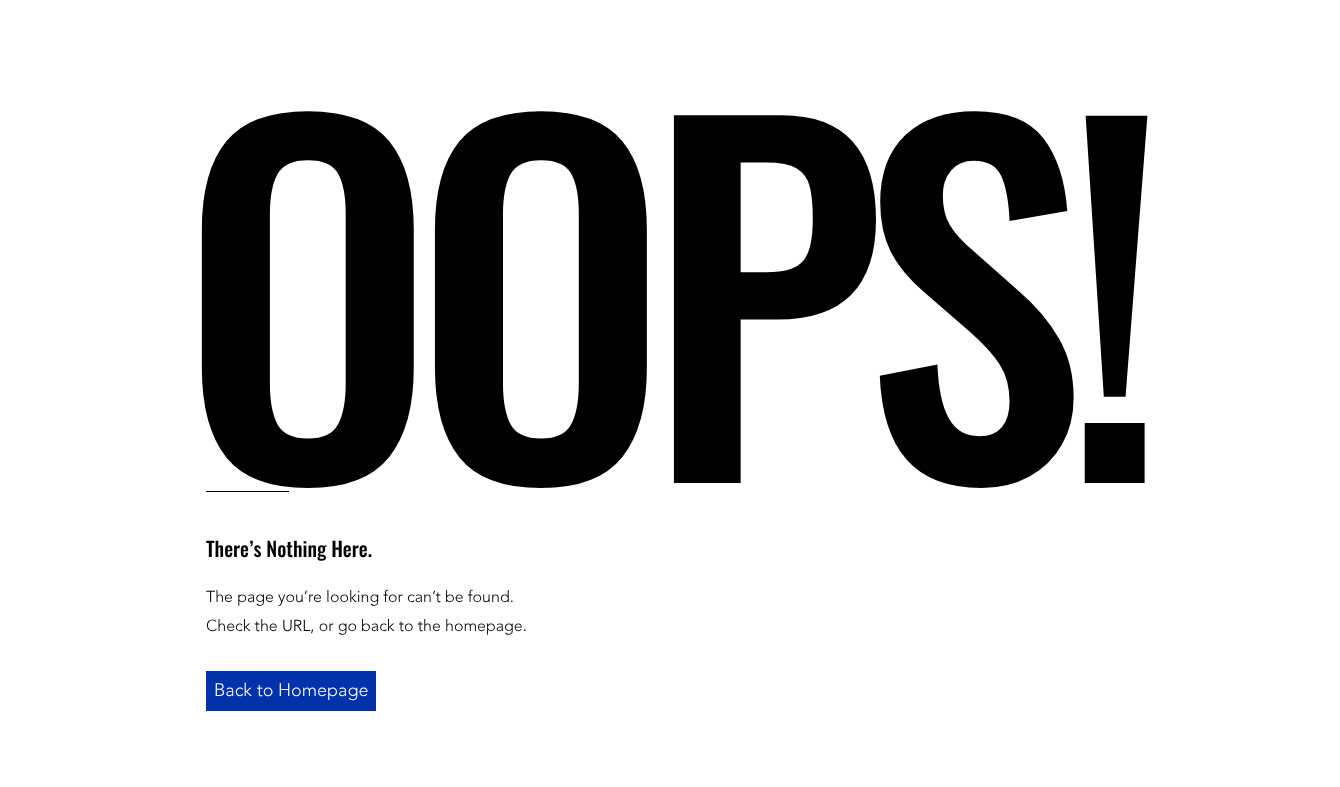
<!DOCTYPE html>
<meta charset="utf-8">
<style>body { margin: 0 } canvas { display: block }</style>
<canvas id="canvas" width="1340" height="787"></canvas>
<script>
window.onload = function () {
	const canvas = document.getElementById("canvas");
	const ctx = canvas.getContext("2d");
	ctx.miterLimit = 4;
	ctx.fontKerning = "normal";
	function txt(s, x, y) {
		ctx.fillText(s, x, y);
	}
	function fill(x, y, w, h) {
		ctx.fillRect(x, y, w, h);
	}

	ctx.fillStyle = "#FFFFFF";
	fill(0, 0, 1340, 787);
	ctx.fillStyle = "#000000";
	fill(206, 491, 83, 1);
	ctx.fillStyle = "#0033AB";
	fill(206, 671, 170, 40);
	ctx.letterSpacing = "-22.5px";
	ctx.font = "500 454px Oswald";
	ctx.fillStyle = "#000000";
	txt("OOPS!", 180, 483);
	ctx.letterSpacing = "0px";
	ctx.font = "500 20px Oswald";
	txt("There’s Nothing Here.", 206, 557);
	ctx.font = "300 16px 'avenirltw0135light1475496'";
	txt("The page you’re looking for can’t be found.", 206, 602);
	txt("Check the URL, or go back to the homepage.", 206, 631);
	ctx.font = "300 18px 'avenirltw0135light1475496'";
	ctx.fillStyle = "#FFFFFF";
	txt("Back to Homepage", 214, 696);
};
</script>
